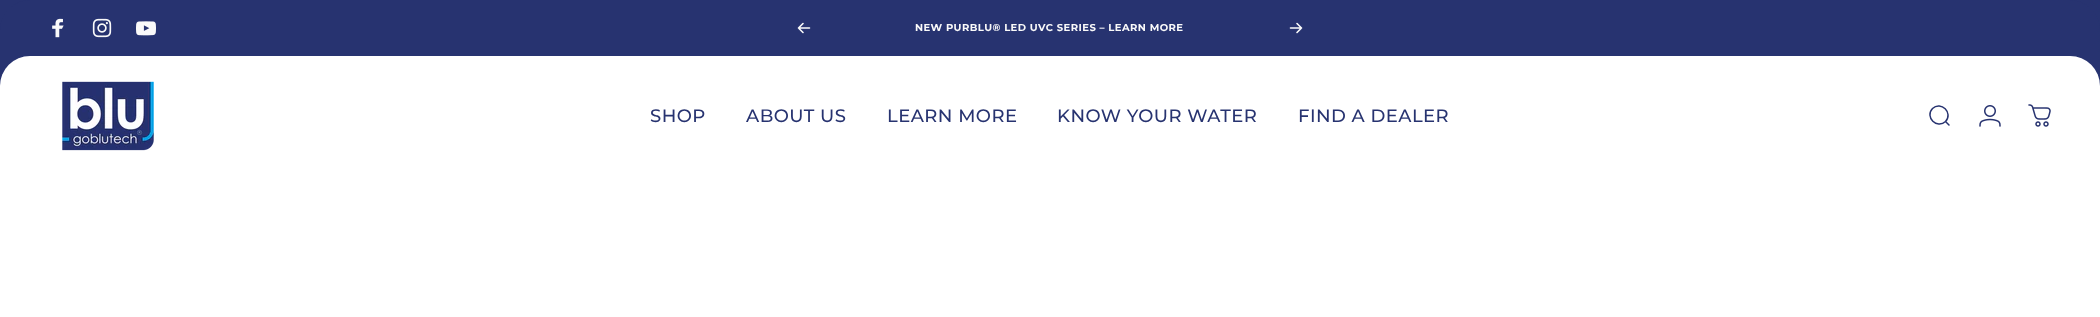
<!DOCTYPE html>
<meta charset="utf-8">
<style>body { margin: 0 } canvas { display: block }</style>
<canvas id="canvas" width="2100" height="317"></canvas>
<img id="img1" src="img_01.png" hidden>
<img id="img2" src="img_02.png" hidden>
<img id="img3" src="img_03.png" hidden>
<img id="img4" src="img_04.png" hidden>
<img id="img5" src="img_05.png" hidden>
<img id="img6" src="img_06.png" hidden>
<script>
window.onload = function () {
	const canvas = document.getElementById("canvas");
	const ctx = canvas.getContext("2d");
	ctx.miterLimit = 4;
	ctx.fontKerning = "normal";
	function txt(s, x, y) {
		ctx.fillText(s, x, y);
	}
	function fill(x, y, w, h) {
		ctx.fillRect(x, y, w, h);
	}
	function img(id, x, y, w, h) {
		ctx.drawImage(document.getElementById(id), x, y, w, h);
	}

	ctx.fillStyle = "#FFFFFF";
	fill(0, 0, 2100, 317);
	ctx.fillStyle = "#273370";
	fill(0, 0, 2100, 30);
	ctx.beginPath();
	ctx.roundRect(0, 0, 2100, 86, [30, 30, 0, 0]);
	ctx.fill();
	img("img1", 52, 18, 12, 20);
	img("img2", 92, 18, 20, 20);
	img("img3", 136, 21, 20, 15);
	ctx.beginPath();
	ctx.moveTo(803, 23.5);
	ctx.lineTo(798.5, 28);
	ctx.moveTo(798.5, 28);
	ctx.lineTo(803, 32.5);
	ctx.moveTo(798.5, 28);
	ctx.lineTo(809.5, 28);
	ctx.strokeStyle = "#FAFAFA";
	ctx.lineWidth = 1.6;
	ctx.lineCap = "round";
	ctx.lineJoin = "round";
	ctx.stroke();
	ctx.beginPath();
	ctx.moveTo(1290.5, 28);
	ctx.lineTo(1301.5, 28);
	ctx.moveTo(1301.5, 28);
	ctx.lineTo(1297, 23.5);
	ctx.moveTo(1301.5, 28);
	ctx.lineTo(1297, 32.5);
	ctx.stroke();
	ctx.fillStyle = "#FFFFFF";
	ctx.beginPath();
	ctx.roundRect(0, 56, 2100, 120, [30, 30, 0, 0]);
	ctx.fill();
	img("img4", 62, 81, 92, 70);
	ctx.beginPath();
	ctx.moveTo(1949, 125);
	ctx.lineTo(1945.5, 121.5);
	ctx.moveTo(1945.5, 121.5);
	ctx.bezierCurveTo(1953.5, 113, 1941, 100.5, 1932.5, 108.5);
	ctx.bezierCurveTo(1924.5, 117, 1937, 129.5, 1945.5, 121.5);
	ctx.closePath();
	ctx.strokeStyle = "#273370";
	ctx.lineWidth = 1.5;
	ctx.lineJoin = "miter";
	ctx.stroke();
	img("img5", 1979, 105, 22, 22);
	img("img6", 2028, 104, 23, 23);
	ctx.letterSpacing = "0.45px";
	ctx.font = "bold 10px Montserrat";
	ctx.fillStyle = "#FAFAFA";
	txt("NEW PURBLU® LED UVC SERIES – LEARN MORE", 915, 31);
	ctx.font = "500 18px Montserrat";
	ctx.fillStyle = "#273370";
	txt("SHOP", 650, 122);
	txt("ABOUT US", 746, 122);
	txt("LEARN MORE", 887, 122);
	txt("KNOW YOUR WATER", 1057, 122);
	txt("FIND A DEALER", 1298, 122);
};
</script>
